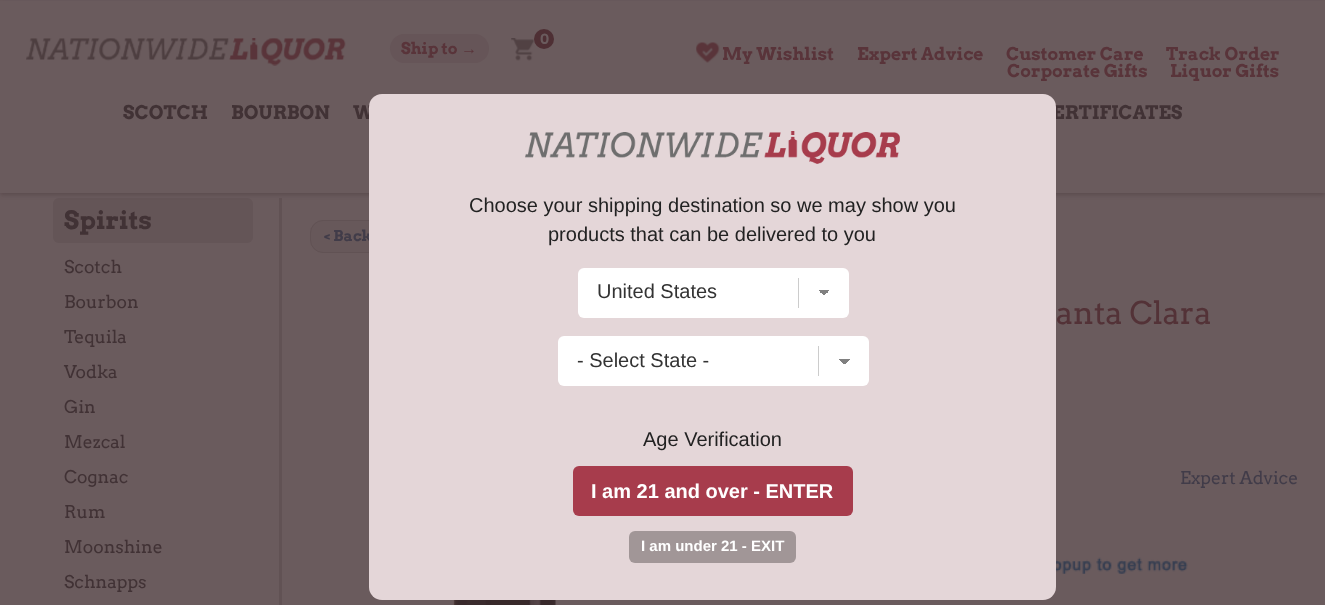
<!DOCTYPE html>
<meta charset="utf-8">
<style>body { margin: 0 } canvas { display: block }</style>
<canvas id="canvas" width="1325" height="605"></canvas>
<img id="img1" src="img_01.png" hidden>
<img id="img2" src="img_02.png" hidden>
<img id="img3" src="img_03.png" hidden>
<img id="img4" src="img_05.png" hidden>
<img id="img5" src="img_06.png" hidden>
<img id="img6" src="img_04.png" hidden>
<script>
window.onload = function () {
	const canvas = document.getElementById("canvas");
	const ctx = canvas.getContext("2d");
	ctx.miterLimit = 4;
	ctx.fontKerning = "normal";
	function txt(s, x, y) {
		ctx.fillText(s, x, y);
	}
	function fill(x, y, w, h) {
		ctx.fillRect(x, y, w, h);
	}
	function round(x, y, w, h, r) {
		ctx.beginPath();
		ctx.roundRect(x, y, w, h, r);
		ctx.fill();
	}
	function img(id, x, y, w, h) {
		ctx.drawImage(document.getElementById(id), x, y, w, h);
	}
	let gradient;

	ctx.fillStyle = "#6A5B5D";
	fill(0, 0, 1325, 605);
	ctx.fillStyle = "#615254";
	fill(279, 198, 3, 407);
	ctx.fillStyle = "#645557";
	round(53, 198, 200, 45, 6);
	ctx.fillStyle = "rgba(55, 40, 42, 0.3)";
	ctx.filter = "blur(2px)";
	ctx.beginPath();
	ctx.rect(0, 3, 1325, 192);
	ctx.fill();
	ctx.filter = "none";
	ctx.fillStyle = "#6A5B5D";
	fill(0, 1, 1325, 192);
	img("img1", 26, 38, 320, 28);
	img("img2", 511, 38, 24, 23);
	ctx.fillStyle = "#4E2F34";
	ctx.beginPath();
	ctx.arc(544, 39, 10, 0, Math.PI * 2);
	ctx.fill();
	ctx.fillStyle = "#665558";
	round(390, 34, 99, 29, 14.5);
	img("img3", 696, 42, 24, 21);
	ctx.fillStyle = "#67585A";
	ctx.beginPath();
	ctx.roundRect(310.5, 220.5, 75, 32, 12.5);
	ctx.fill();
	ctx.strokeStyle = "#615254";
	ctx.stroke();
	img("img4", 1056, 557, 132, 17);
	img("img5", 451, 600, 143, 5);
	ctx.font = "bold 14px Arvo";
	ctx.fillStyle = "#6A5B5D";
	txt("0", 540, 44);
	ctx.font = "bold 16px Arvo";
	ctx.fillStyle = "#59343A";
	txt("Ship to", 401, 54);
	ctx.font = "bold 16px Liberation Sans";
	txt("→", 461, 54);
	ctx.font = "bold 17.5px Arvo";
	txt("My Wishlist", 722, 60);
	txt("Expert Advice", 857, 60);
	txt("Customer Care", 1006, 60);
	txt("Track Order", 1166, 60);
	txt("Corporate Gifts", 1007, 77);
	txt("Liquor Gifts", 1170, 77);
	ctx.font = "bold 18.75px Arvo";
	ctx.fillStyle = "#413235";
	txt("SCOTCH", 123, 119);
	txt("BOURBON", 231, 119);
	txt("W", 353, 119);
	txt("ERTIFICATES", 1052, 119);
	ctx.font = "bold 25px Arvo";
	txt("Spirits", 64, 229);
	ctx.font = "17.5px Arvo";
	txt("Scotch", 64, 273);
	txt("Bourbon", 64, 308);
	txt("Tequila", 64, 343);
	txt("Vodka", 64, 378);
	txt("Gin", 64, 413);
	txt("Mezcal", 64, 448);
	txt("Cognac", 64, 483);
	txt("Rum", 64, 518);
	txt("Moonshine", 64, 553);
	txt("Schnapps", 64, 588);
	ctx.font = "bold 15px Arvo";
	ctx.fillStyle = "#413C49";
	txt("< Back", 324, 241);
	ctx.fillStyle = "#E4D6D8";
	round(369, 94, 687, 506, 13);
	ctx.fillStyle = "#A19697";
	round(629, 531, 167, 32, 6);
	ctx.font = "bold 15px Liberation Sans";
	ctx.fillStyle = "#FFFFFF";
	txt("I am under 21 - EXIT", 641, 551);
	ctx.fillStyle = "#A73C4C";
	round(573, 466, 280, 50, 6);
	ctx.font = "bold 20px Liberation Sans";
	ctx.fillStyle = "#FFFFFF";
	txt("I am 21 and over - ENTER", 591, 498);
	ctx.font = "20px Liberation Sans";
	ctx.fillStyle = "#222222";
	txt("Age Verification", 643, 446);
	ctx.fillStyle = "#FFFFFF";
	round(558, 336, 311, 50, 6);
	ctx.fillStyle = "#333333";
	txt("- Select State -", 577, 367);
	gradient = ctx.createLinearGradient(838, 365, 844, 359);
	gradient.addColorStop(0.5, "#FFFFFF");
	gradient.addColorStop(0.5, "#808080");
	ctx.fillStyle = gradient;
	fill(838, 359, 6, 5);
	gradient = ctx.createLinearGradient(844, 359, 850, 365);
	gradient.addColorStop(0.5, "#808080");
	gradient.addColorStop(0.5, "#FFFFFF");
	ctx.fillStyle = gradient;
	fill(844, 359, 6, 5);
	ctx.fillStyle = "#CCCCCC";
	fill(818, 346, 1, 30);
	ctx.fillStyle = "#FFFFFF";
	round(578, 268, 271, 50, 6);
	ctx.fillStyle = "#333333";
	txt("United States", 597, 298);
	gradient = ctx.createLinearGradient(818, 296, 824, 290);
	gradient.addColorStop(0.5, "#FFFFFF");
	gradient.addColorStop(0.5, "#808080");
	ctx.fillStyle = gradient;
	fill(818, 290, 6, 5);
	gradient = ctx.createLinearGradient(824, 290, 830, 296);
	gradient.addColorStop(0.5, "#808080");
	gradient.addColorStop(0.5, "#FFFFFF");
	ctx.fillStyle = gradient;
	fill(824, 290, 6, 5);
	ctx.fillStyle = "#CCCCCC";
	fill(798, 278, 1, 30);
	ctx.fillStyle = "#222222";
	txt("products that can be delivered to you", 548, 241);
	txt("Choose your shipping destination so we may show you", 469, 212);
	img("img6", 525, 131, 375, 33);
	ctx.font = "31.25px Arvo";
	ctx.fillStyle = "#533237";
	txt("anta Clara", 1056, 324);
	ctx.font = "17.5px Arvo";
	ctx.fillStyle = "#413C49";
	txt("Expert Advice", 1180, 484);
};
</script>
